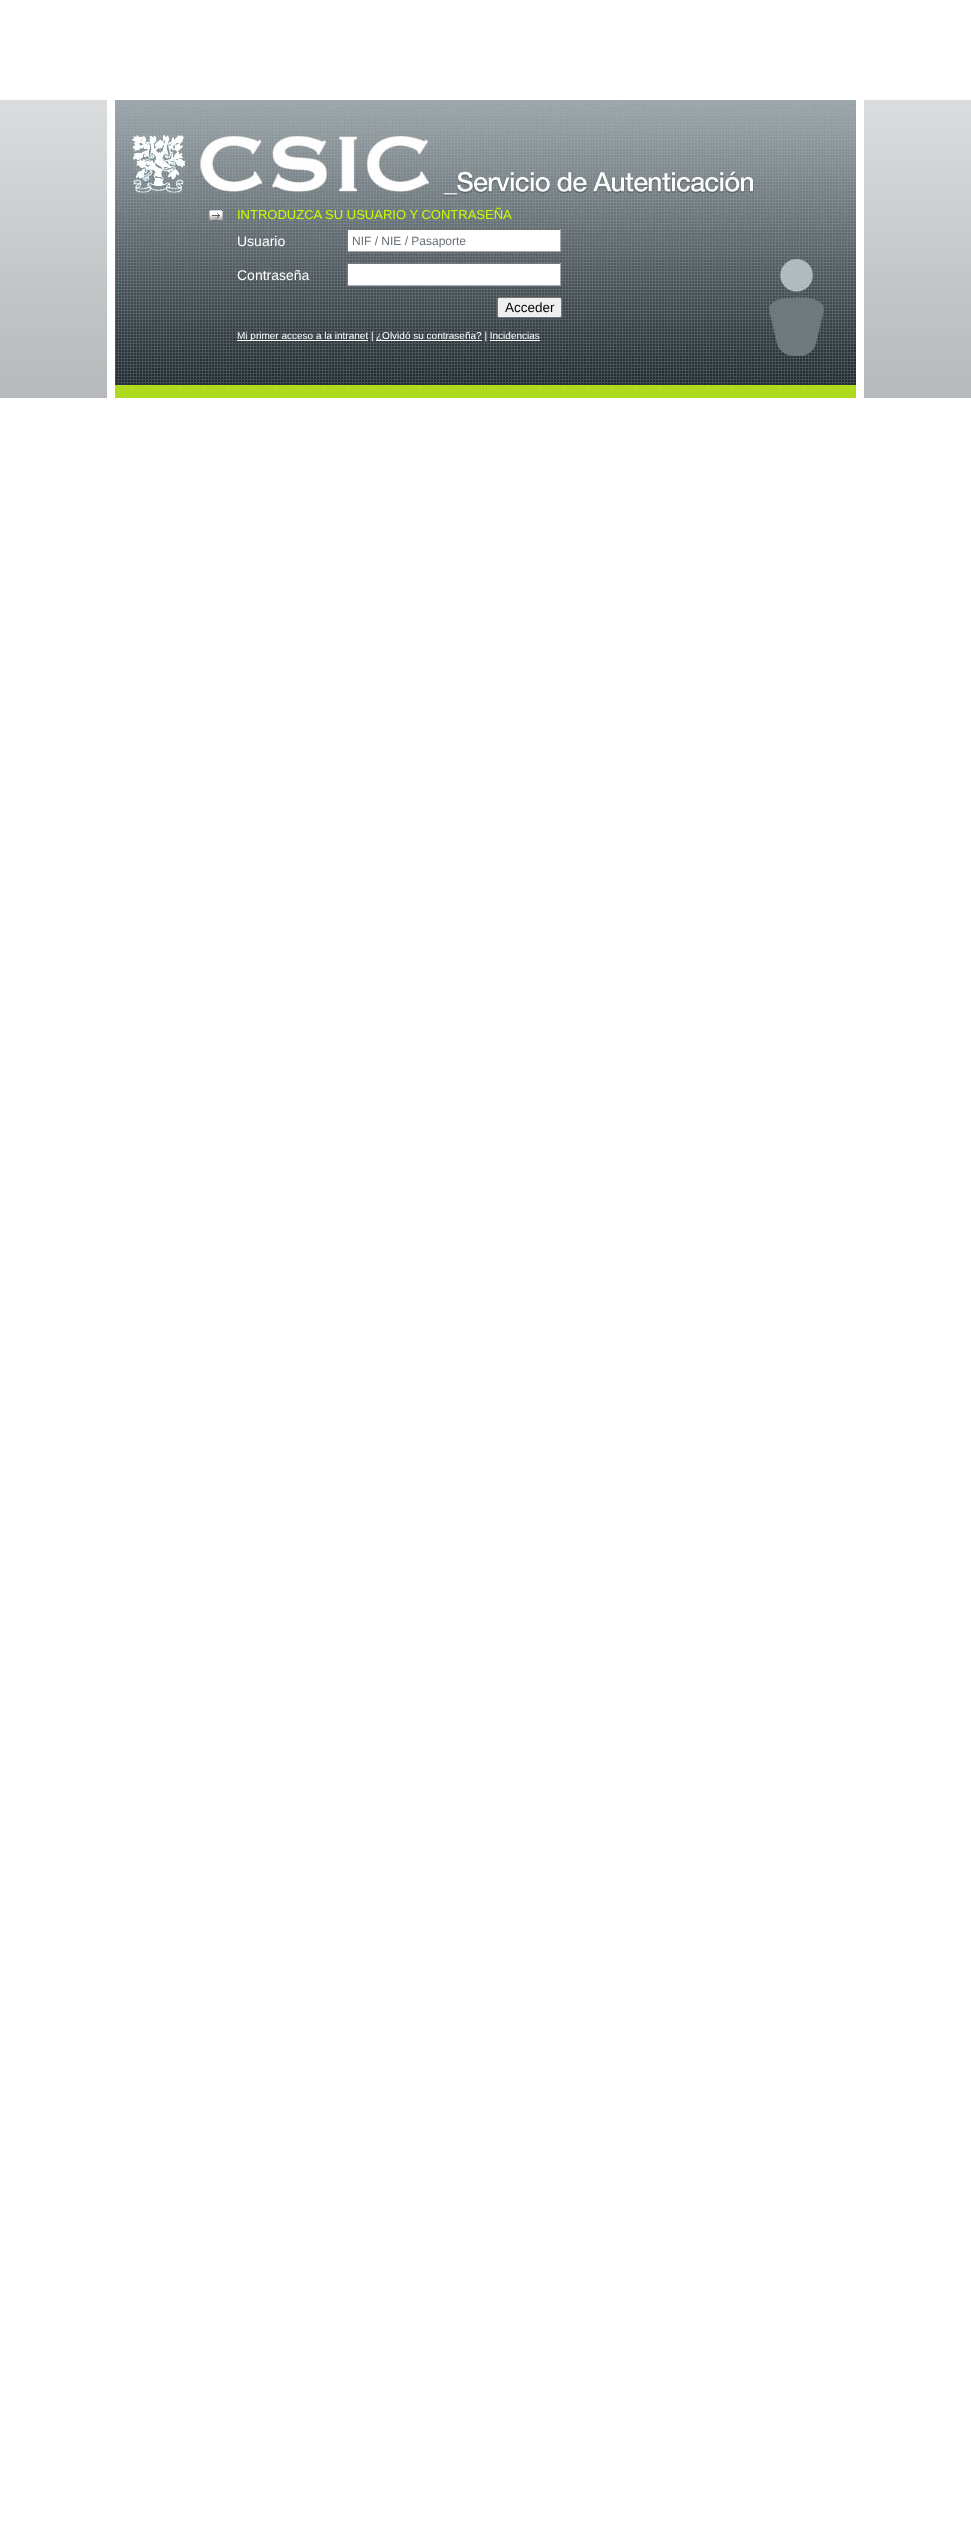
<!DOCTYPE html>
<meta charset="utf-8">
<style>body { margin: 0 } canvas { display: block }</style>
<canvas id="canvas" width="971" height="2542"></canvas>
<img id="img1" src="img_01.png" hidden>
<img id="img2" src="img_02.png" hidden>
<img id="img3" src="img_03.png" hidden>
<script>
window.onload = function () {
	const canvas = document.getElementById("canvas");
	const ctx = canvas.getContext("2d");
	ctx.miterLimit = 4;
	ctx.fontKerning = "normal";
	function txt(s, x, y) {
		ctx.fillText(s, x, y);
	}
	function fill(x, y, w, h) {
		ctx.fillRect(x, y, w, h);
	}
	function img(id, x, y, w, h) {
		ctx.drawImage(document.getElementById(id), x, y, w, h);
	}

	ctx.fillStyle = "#FFFFFF";
	fill(0, 0, 971, 2542);
	img("img1", 0, 100, 971, 298);
	img("img2", 115, 100, 741, 298);
	fill(856, 100, 8, 298);
	fill(107, 100, 8, 298);
	img("img3", 209, 210, 14, 11);
	fill(348, 230, 212, 21);
	ctx.fillStyle = "#777777";
	fill(347, 229, 214, 1);
	ctx.fillStyle = "#AAAAAA";
	fill(560, 229, 1, 23);
	fill(347, 251, 214, 1);
	ctx.fillStyle = "#777777";
	fill(347, 229, 1, 23);
	ctx.fillStyle = "#FFFFFF";
	fill(348, 264, 212, 21);
	ctx.fillStyle = "#777777";
	fill(347, 263, 214, 1);
	ctx.fillStyle = "#AAAAAA";
	fill(560, 263, 1, 23);
	fill(347, 285, 214, 1);
	ctx.fillStyle = "#777777";
	fill(347, 263, 1, 23);
	ctx.fillStyle = "#EFEFEF";
	ctx.beginPath();
	ctx.roundRect(497.5, 297.5, 64, 20, 1.5);
	ctx.fill();
	ctx.strokeStyle = "#767676";
	ctx.stroke();
	ctx.fillStyle = "#FFFFFF";
	fill(237, 340, 131, 1);
	fill(376, 340, 106, 1);
	fill(490, 340, 50, 1);
	ctx.font = "13px Liberation Sans";
	ctx.fillStyle = "#C3FF00";
	txt("INTRODUZCA SU USUARIO Y CONTRASEÑA", 237, 219);
	ctx.font = "14px Liberation Sans";
	ctx.fillStyle = "#FFFFFF";
	txt("Usuario", 237, 246);
	ctx.font = "12px Liberation Sans";
	ctx.fillStyle = "#676F77";
	txt("NIF / NIE / Pasaporte", 352, 245);
	ctx.font = "14px Liberation Sans";
	ctx.fillStyle = "#FFFFFF";
	txt("Contraseña", 237, 280);
	ctx.font = "13.5px Liberation Sans";
	ctx.fillStyle = "#000000";
	txt("Acceder", 505, 312);
	ctx.font = "10px Liberation Sans";
	ctx.fillStyle = "#FFFFFF";
	txt("Mi primer acceso a la intranet |", 237, 339);
	txt("¿Olvidó su contraseña? | Incidencias", 376, 339);
};
</script>
